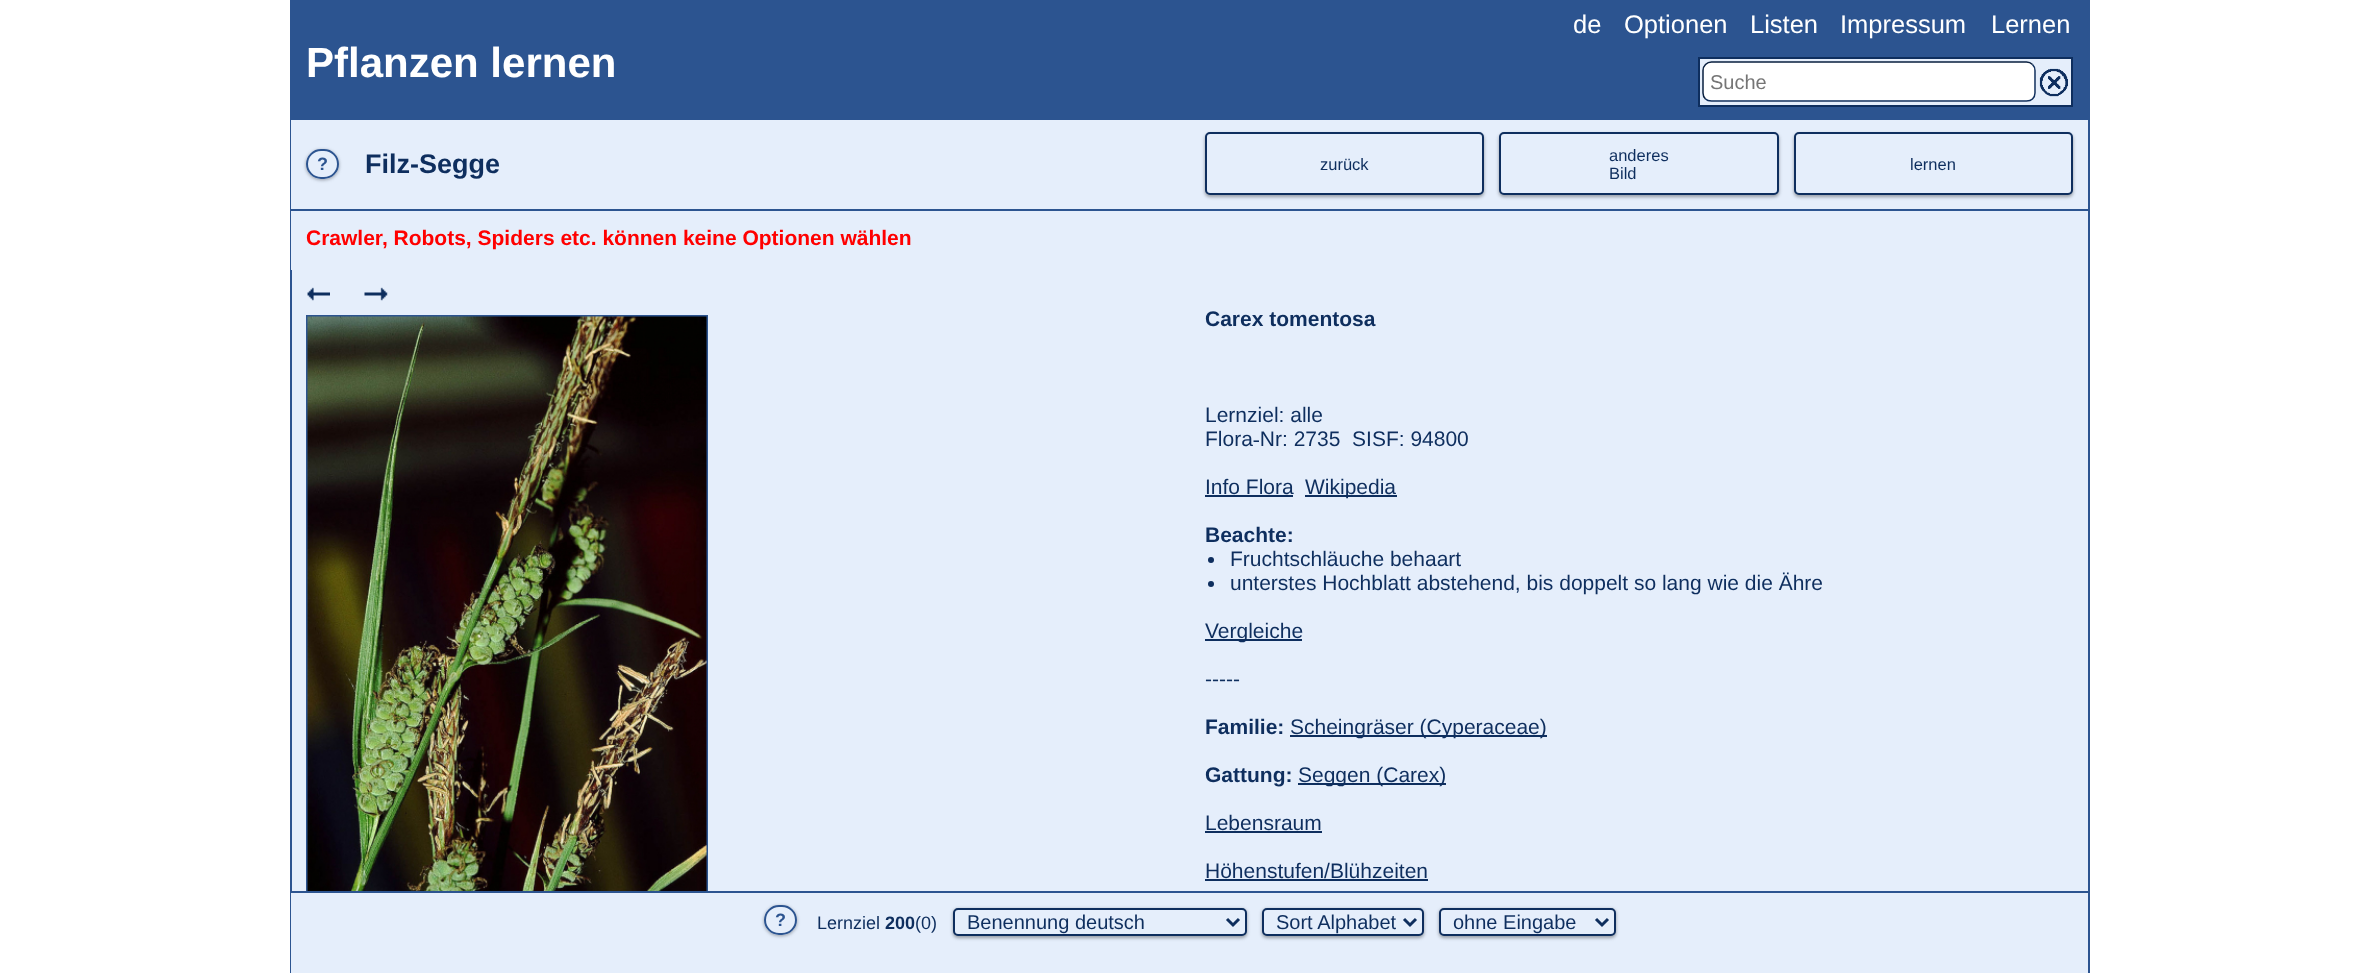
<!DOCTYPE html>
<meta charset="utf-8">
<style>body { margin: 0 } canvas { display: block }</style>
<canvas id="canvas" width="2379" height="973"></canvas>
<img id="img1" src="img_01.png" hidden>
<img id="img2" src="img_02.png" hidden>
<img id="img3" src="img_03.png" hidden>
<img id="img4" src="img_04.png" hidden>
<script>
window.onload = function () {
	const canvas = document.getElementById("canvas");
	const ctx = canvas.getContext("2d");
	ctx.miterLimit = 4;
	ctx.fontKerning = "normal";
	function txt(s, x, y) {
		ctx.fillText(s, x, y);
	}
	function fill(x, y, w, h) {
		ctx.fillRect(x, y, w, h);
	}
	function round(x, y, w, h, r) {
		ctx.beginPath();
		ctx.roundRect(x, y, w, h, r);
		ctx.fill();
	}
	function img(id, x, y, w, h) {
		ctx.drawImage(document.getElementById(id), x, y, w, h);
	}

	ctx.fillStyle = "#FFFFFF";
	fill(0, 0, 2379, 973);
	ctx.fillStyle = "#E5EEFB";
	fill(292, 270, 1796, 621);
	ctx.fillStyle = "#2C5490";
	fill(2088, 0, 2, 973);
	fill(290, 0, 2, 973);
	fill(292, 0, 1796, 120);
	ctx.fillStyle = "#E5EEFB";
	ctx.beginPath();
	ctx.rect(1699, 58, 373, 48);
	ctx.fill();
	ctx.strokeStyle = "#0E2E5E";
	ctx.lineWidth = 2;
	ctx.stroke();
	ctx.fillStyle = "#FFFFFF";
	round(1703, 62, 333, 40, 9);
	ctx.beginPath();
	ctx.moveTo(2032.5, 64.5);
	ctx.bezierCurveTo(2034, 66, 2035, 68.5, 2035, 70.5);
	ctx.lineTo(2035, 93);
	ctx.bezierCurveTo(2035, 95, 2034, 97.5, 2032.5, 99);
	ctx.bezierCurveTo(2031, 100.5, 2028.5, 101, 2026.5, 101);
	ctx.lineTo(1711.5, 101);
	ctx.bezierCurveTo(1709.5, 101, 1707, 100.5, 1705.5, 99);
	ctx.lineWidth = 1.5;
	ctx.stroke();
	ctx.beginPath();
	ctx.moveTo(1705.5, 99);
	ctx.bezierCurveTo(1704, 97.5, 1703, 95, 1703, 93);
	ctx.lineTo(1703, 70.5);
	ctx.bezierCurveTo(1703, 68.5, 1704, 66, 1705.5, 64.5);
	ctx.bezierCurveTo(1707, 63, 1709.5, 62, 1711.5, 62);
	ctx.lineTo(2026.5, 62);
	ctx.bezierCurveTo(2028.5, 62, 2031, 63, 2032.5, 64.5);
	ctx.strokeStyle = "#091F3F";
	ctx.stroke();
	img("img1", 2039, 68, 29, 29);
	ctx.fillStyle = "#E5EEFB";
	fill(291, 120, 1797, 89);
	ctx.fillStyle = "#2C5490";
	fill(291, 209, 1797, 2);
	ctx.save();
	ctx.beginPath();
	ctx.moveTo(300, 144);
	ctx.lineTo(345, 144);
	ctx.lineTo(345, 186);
	ctx.lineTo(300, 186);
	ctx.closePath();
	ctx.moveTo(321, 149);
	ctx.lineTo(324, 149);
	ctx.bezierCurveTo(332.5, 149, 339, 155.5, 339, 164);
	ctx.bezierCurveTo(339, 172.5, 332.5, 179, 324, 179);
	ctx.lineTo(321, 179);
	ctx.bezierCurveTo(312.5, 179, 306, 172.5, 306, 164);
	ctx.bezierCurveTo(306, 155.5, 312.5, 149, 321, 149);
	ctx.closePath();
	ctx.clip("evenodd");
	ctx.fillStyle = "rgba(0, 0, 0, 0.24)";
	ctx.filter = "blur(1.5px)";
	ctx.beginPath();
	ctx.roundRect(306, 150, 33, 30, 15);
	ctx.fill();
	ctx.filter = "none";
	ctx.restore();
	ctx.save();
	ctx.beginPath();
	ctx.moveTo(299, 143);
	ctx.lineTo(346, 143);
	ctx.lineTo(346, 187);
	ctx.lineTo(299, 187);
	ctx.closePath();
	ctx.moveTo(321, 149);
	ctx.lineTo(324, 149);
	ctx.bezierCurveTo(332.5, 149, 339, 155.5, 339, 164);
	ctx.bezierCurveTo(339, 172.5, 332.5, 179, 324, 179);
	ctx.lineTo(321, 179);
	ctx.bezierCurveTo(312.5, 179, 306, 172.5, 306, 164);
	ctx.bezierCurveTo(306, 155.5, 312.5, 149, 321, 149);
	ctx.closePath();
	ctx.clip("evenodd");
	ctx.fillStyle = "rgba(0, 0, 0, 0.12)";
	ctx.filter = "blur(2px)";
	ctx.beginPath();
	ctx.roundRect(306, 150, 33, 30, 15);
	ctx.fill();
	ctx.filter = "none";
	ctx.restore();
	ctx.beginPath();
	ctx.roundRect(307, 150, 31, 28, 14);
	ctx.strokeStyle = "#2C5490";
	ctx.lineWidth = 2;
	ctx.stroke();
	ctx.fillStyle = "rgba(0, 0, 0, 0.24)";
	ctx.filter = "blur(1.5px)";
	ctx.beginPath();
	ctx.roundRect(1205, 134, 279, 63, 5);
	ctx.fill();
	ctx.filter = "none";
	ctx.fillStyle = "rgba(0, 0, 0, 0.12)";
	ctx.filter = "blur(2px)";
	ctx.beginPath();
	ctx.roundRect(1205, 134, 279, 63, 5);
	ctx.fill();
	ctx.filter = "none";
	ctx.fillStyle = "#E5EEFB";
	ctx.beginPath();
	ctx.roundRect(1206, 133, 277, 61, 4);
	ctx.fill();
	ctx.strokeStyle = "#0E2E5E";
	ctx.stroke();
	ctx.fillStyle = "rgba(0, 0, 0, 0.24)";
	ctx.filter = "blur(1.5px)";
	ctx.beginPath();
	ctx.roundRect(1499, 134, 280, 63, 5);
	ctx.fill();
	ctx.filter = "none";
	ctx.fillStyle = "rgba(0, 0, 0, 0.12)";
	ctx.filter = "blur(2px)";
	ctx.beginPath();
	ctx.roundRect(1499, 134, 280, 63, 5);
	ctx.fill();
	ctx.filter = "none";
	ctx.fillStyle = "#E5EEFB";
	ctx.beginPath();
	ctx.roundRect(1500, 133, 278, 61, 4);
	ctx.fill();
	ctx.stroke();
	ctx.fillStyle = "rgba(0, 0, 0, 0.24)";
	ctx.filter = "blur(1.5px)";
	ctx.beginPath();
	ctx.roundRect(1794, 134, 279, 63, 5);
	ctx.fill();
	ctx.filter = "none";
	ctx.fillStyle = "rgba(0, 0, 0, 0.12)";
	ctx.filter = "blur(2px)";
	ctx.beginPath();
	ctx.roundRect(1794, 134, 279, 63, 5);
	ctx.fill();
	ctx.filter = "none";
	ctx.fillStyle = "#E5EEFB";
	ctx.beginPath();
	ctx.roundRect(1795, 133, 277, 61, 4);
	ctx.fill();
	ctx.stroke();
	fill(291, 211, 1797, 59);
	img("img2", 307, 287, 23, 14);
	img("img3", 364, 287, 24, 14);
	ctx.strokeStyle = "#2C5490";
	ctx.strokeRect(307, 316, 400, 627);
	img("img4", 307, 316, 400, 575);
	ctx.fillStyle = "#0E2E5E";
	fill(1205, 495, 88, 2);
	fill(1305, 495, 92, 2);
	ctx.beginPath();
	ctx.arc(1211, 560, 3, 0, Math.PI * 2);
	ctx.fill();
	ctx.beginPath();
	ctx.arc(1211, 584, 3, 0, Math.PI * 2);
	ctx.fill();
	fill(1205, 639, 97, 2);
	fill(1290, 735, 257, 2);
	fill(1298, 783, 148, 2);
	fill(1205, 831, 117, 2);
	fill(1205, 879, 223, 2);
	ctx.fillStyle = "#E5EEFB";
	fill(291, 893, 1797, 80);
	ctx.fillStyle = "#2C5490";
	fill(291, 891, 1797, 2);
	ctx.save();
	ctx.beginPath();
	ctx.moveTo(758, 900);
	ctx.lineTo(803, 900);
	ctx.lineTo(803, 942);
	ctx.lineTo(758, 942);
	ctx.closePath();
	ctx.moveTo(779, 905);
	ctx.lineTo(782, 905);
	ctx.bezierCurveTo(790.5, 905, 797, 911.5, 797, 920);
	ctx.bezierCurveTo(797, 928.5, 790.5, 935, 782, 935);
	ctx.lineTo(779, 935);
	ctx.bezierCurveTo(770.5, 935, 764, 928.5, 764, 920);
	ctx.bezierCurveTo(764, 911.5, 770.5, 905, 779, 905);
	ctx.closePath();
	ctx.clip("evenodd");
	ctx.fillStyle = "rgba(0, 0, 0, 0.24)";
	ctx.filter = "blur(1.5px)";
	ctx.beginPath();
	ctx.roundRect(764, 906, 33, 30, 15);
	ctx.fill();
	ctx.filter = "none";
	ctx.restore();
	ctx.save();
	ctx.beginPath();
	ctx.moveTo(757, 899);
	ctx.lineTo(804, 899);
	ctx.lineTo(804, 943);
	ctx.lineTo(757, 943);
	ctx.closePath();
	ctx.moveTo(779, 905);
	ctx.lineTo(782, 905);
	ctx.bezierCurveTo(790.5, 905, 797, 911.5, 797, 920);
	ctx.bezierCurveTo(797, 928.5, 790.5, 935, 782, 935);
	ctx.lineTo(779, 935);
	ctx.bezierCurveTo(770.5, 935, 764, 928.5, 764, 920);
	ctx.bezierCurveTo(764, 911.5, 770.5, 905, 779, 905);
	ctx.closePath();
	ctx.clip("evenodd");
	ctx.fillStyle = "rgba(0, 0, 0, 0.12)";
	ctx.filter = "blur(2px)";
	ctx.beginPath();
	ctx.roundRect(764, 906, 33, 30, 15);
	ctx.fill();
	ctx.filter = "none";
	ctx.restore();
	ctx.beginPath();
	ctx.roundRect(765, 906, 31, 28, 14);
	ctx.stroke();
	ctx.fillStyle = "rgba(0, 0, 0, 0.24)";
	ctx.filter = "blur(1.5px)";
	ctx.beginPath();
	ctx.roundRect(953, 909, 294, 29, 5);
	ctx.fill();
	ctx.filter = "none";
	ctx.fillStyle = "rgba(0, 0, 0, 0.12)";
	ctx.filter = "blur(2px)";
	ctx.beginPath();
	ctx.roundRect(953, 909, 294, 29, 5);
	ctx.fill();
	ctx.filter = "none";
	ctx.fillStyle = "#E5EEFB";
	ctx.beginPath();
	ctx.roundRect(954, 909, 292, 26, 4);
	ctx.fill();
	ctx.strokeStyle = "#0E2E5E";
	ctx.stroke();
	ctx.beginPath();
	ctx.moveTo(1227, 919);
	ctx.lineTo(1233, 925);
	ctx.lineTo(1239, 919);
	ctx.lineWidth = 3;
	ctx.stroke();
	ctx.fillStyle = "rgba(0, 0, 0, 0.24)";
	ctx.filter = "blur(1.5px)";
	ctx.beginPath();
	ctx.roundRect(1262, 909, 162, 29, 5);
	ctx.fill();
	ctx.filter = "none";
	ctx.fillStyle = "rgba(0, 0, 0, 0.12)";
	ctx.filter = "blur(2px)";
	ctx.beginPath();
	ctx.roundRect(1262, 909, 162, 29, 5);
	ctx.fill();
	ctx.filter = "none";
	ctx.fillStyle = "#E5EEFB";
	ctx.beginPath();
	ctx.roundRect(1263, 909, 160, 26, 4);
	ctx.fill();
	ctx.lineWidth = 2;
	ctx.stroke();
	ctx.beginPath();
	ctx.moveTo(1404, 919);
	ctx.lineTo(1410, 925);
	ctx.lineTo(1416, 919);
	ctx.lineWidth = 3;
	ctx.stroke();
	ctx.fillStyle = "rgba(0, 0, 0, 0.24)";
	ctx.filter = "blur(1.5px)";
	ctx.beginPath();
	ctx.roundRect(1439, 909, 177, 29, 5);
	ctx.fill();
	ctx.filter = "none";
	ctx.fillStyle = "rgba(0, 0, 0, 0.12)";
	ctx.filter = "blur(2px)";
	ctx.beginPath();
	ctx.roundRect(1439, 909, 177, 29, 5);
	ctx.fill();
	ctx.filter = "none";
	ctx.fillStyle = "#E5EEFB";
	ctx.beginPath();
	ctx.roundRect(1440, 909, 175, 26, 4);
	ctx.fill();
	ctx.lineWidth = 2;
	ctx.stroke();
	ctx.beginPath();
	ctx.moveTo(1596, 919);
	ctx.lineTo(1602, 925);
	ctx.lineTo(1608, 919);
	ctx.lineWidth = 3;
	ctx.stroke();
	ctx.font = "25.5px Liberation Sans";
	ctx.fillStyle = "#FFFFFF";
	txt("de", 1573, 33);
	txt("Optionen", 1624, 33);
	txt("Listen", 1750, 33);
	txt("Impressum", 1840, 33);
	txt("Lernen", 1991, 33);
	ctx.font = "bold 42px Liberation Sans";
	txt("Pflanzen lernen", 306, 77);
	ctx.font = "20px Liberation Sans";
	ctx.fillStyle = "#757575";
	txt("Suche", 1710, 89);
	ctx.font = "bold 18px Liberation Sans";
	ctx.fillStyle = "#2C5490";
	txt("?", 317, 170);
	ctx.font = "bold 27px Liberation Sans";
	ctx.fillStyle = "#0E2E5E";
	txt("Filz-Segge", 365, 173);
	ctx.font = "16.5px Liberation Sans";
	txt("zurück", 1320, 170);
	txt("anderes", 1609, 161);
	txt("Bild", 1609, 179);
	txt("lernen", 1910, 170);
	ctx.font = "bold 21px Liberation Sans";
	ctx.fillStyle = "#FF0000";
	txt("Crawler, Robots, Spiders etc. können keine Optionen wählen", 306, 245);
	ctx.fillStyle = "#0E2E5E";
	txt("Carex tomentosa", 1205, 326);
	ctx.font = "21px Liberation Sans";
	txt("Lernziel: alle", 1205, 422);
	txt("Flora‑Nr: 2735  SISF: 94800", 1205, 446);
	txt("Info Flora", 1205, 494);
	txt("Wikipedia", 1305, 494);
	ctx.font = "bold 21px Liberation Sans";
	txt("Beachte:", 1205, 542);
	ctx.font = "21px Liberation Sans";
	txt("Fruchtschläuche behaart", 1230, 566);
	txt("unterstes Hochblatt abstehend, bis doppelt so lang wie die Ähre", 1230, 590);
	txt("Vergleiche", 1205, 638);
	txt("-----", 1205, 686);
	ctx.font = "bold 21px Liberation Sans";
	txt("Familie:", 1205, 734);
	ctx.font = "21px Liberation Sans";
	txt("Scheingräser (Cyperaceae)", 1290, 734);
	ctx.font = "bold 21px Liberation Sans";
	txt("Gattung:", 1205, 782);
	ctx.font = "21px Liberation Sans";
	txt("Seggen (Carex)", 1298, 782);
	txt("Lebensraum", 1205, 830);
	txt("Höhenstufen/Blühzeiten", 1205, 878);
	ctx.font = "bold 18px Liberation Sans";
	ctx.fillStyle = "#2C5490";
	txt("?", 775, 926);
	ctx.font = "18px Liberation Sans";
	ctx.fillStyle = "#0E2E5E";
	txt("Lernziel", 817, 929);
	ctx.font = "bold 18px Liberation Sans";
	txt("200", 885, 929);
	ctx.font = "18px Liberation Sans";
	txt("(0)", 915, 929);
	ctx.font = "20px Liberation Sans";
	txt("Benennung deutsch", 967, 929);
	txt("Sort Alphabet", 1276, 929);
	txt("ohne Eingabe", 1453, 929);
};
</script>
